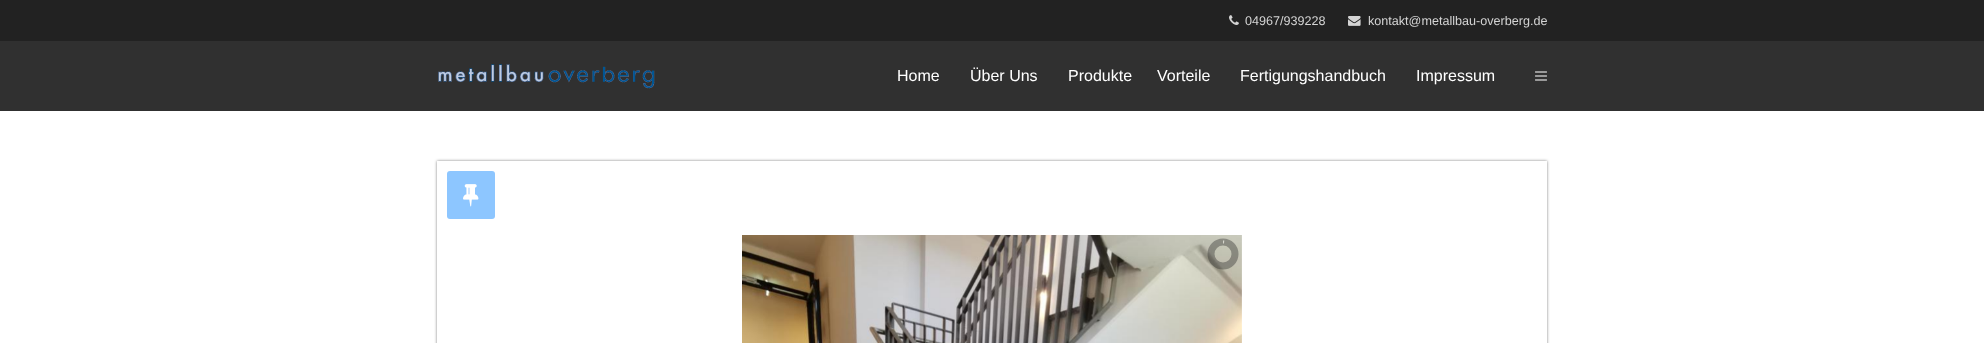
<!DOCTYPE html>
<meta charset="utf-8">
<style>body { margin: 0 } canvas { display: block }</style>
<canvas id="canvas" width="1984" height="343"></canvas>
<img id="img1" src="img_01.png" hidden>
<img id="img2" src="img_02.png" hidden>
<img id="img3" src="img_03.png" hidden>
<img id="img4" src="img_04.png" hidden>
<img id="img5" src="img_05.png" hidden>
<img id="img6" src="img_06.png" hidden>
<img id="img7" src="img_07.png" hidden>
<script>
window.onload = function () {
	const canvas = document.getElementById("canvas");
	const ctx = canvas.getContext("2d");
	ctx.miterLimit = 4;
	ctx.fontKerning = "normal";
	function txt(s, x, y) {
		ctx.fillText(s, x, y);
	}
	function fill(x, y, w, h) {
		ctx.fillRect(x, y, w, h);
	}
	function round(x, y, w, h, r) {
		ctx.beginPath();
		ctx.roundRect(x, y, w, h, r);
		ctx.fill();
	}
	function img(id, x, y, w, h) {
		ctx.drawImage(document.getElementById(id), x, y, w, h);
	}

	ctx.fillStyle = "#FFFFFF";
	fill(0, 0, 1984, 343);
	ctx.fillStyle = "#222222";
	fill(0, 0, 1984, 41);
	img("img1", 1229, 15, 10, 10);
	img("img2", 1348, 16, 13, 10);
	ctx.fillStyle = "#303030";
	fill(0, 41, 1984, 70);
	img("img3", 438, 64, 217, 25);
	img("img4", 1535, 71, 12, 10);
	ctx.save();
	ctx.beginPath();
	ctx.moveTo(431, 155);
	ctx.lineTo(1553, 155);
	ctx.lineTo(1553, 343);
	ctx.lineTo(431, 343);
	ctx.closePath();
	ctx.moveTo(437, 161);
	ctx.lineTo(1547, 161);
	ctx.lineTo(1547, 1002);
	ctx.lineTo(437, 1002);
	ctx.closePath();
	ctx.clip("evenodd");
	ctx.fillStyle = "rgba(0, 0, 0, 0.5)";
	ctx.filter = "blur(1.5px)";
	ctx.beginPath();
	ctx.rect(437, 161, 1110, 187);
	ctx.fill();
	ctx.filter = "none";
	ctx.restore();
	ctx.fillStyle = "#8DC6FF";
	round(447, 171, 48, 48, 3);
	img("img5", 463, 184, 16, 23);
	img("img6", 742, 235, 500, 108);
	img("img7", 1207, 238, 32, 32);
	ctx.font = "12.6px Liberation Sans";
	ctx.fillStyle = "#D4D4D4";
	txt("04967/939228", 1245, 25);
	txt("kontakt@metallbau-overberg.de", 1368, 25);
	ctx.font = "16px Liberation Sans";
	ctx.fillStyle = "#FFFFFF";
	txt("Home", 897, 81);
	txt("Über Uns", 970, 81);
	txt("Produkte", 1068, 81);
	txt("Vorteile", 1157, 81);
	txt("Fertigungshandbuch", 1240, 81);
	txt("Impressum", 1416, 81);
};
</script>
